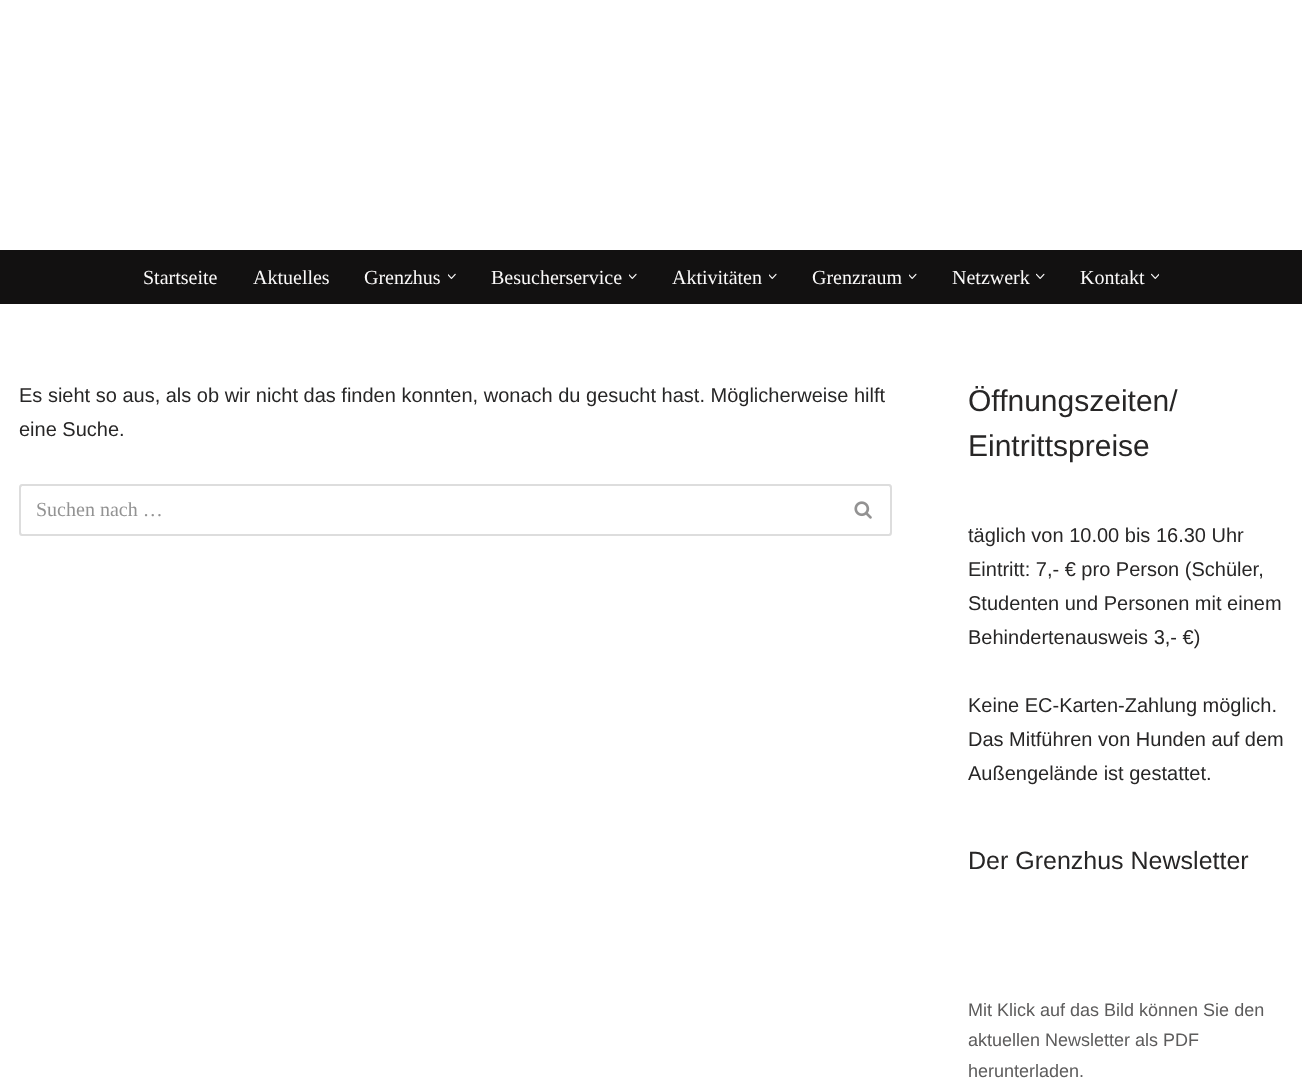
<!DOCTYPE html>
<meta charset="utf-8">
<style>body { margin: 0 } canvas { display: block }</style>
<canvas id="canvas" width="1302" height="1092"></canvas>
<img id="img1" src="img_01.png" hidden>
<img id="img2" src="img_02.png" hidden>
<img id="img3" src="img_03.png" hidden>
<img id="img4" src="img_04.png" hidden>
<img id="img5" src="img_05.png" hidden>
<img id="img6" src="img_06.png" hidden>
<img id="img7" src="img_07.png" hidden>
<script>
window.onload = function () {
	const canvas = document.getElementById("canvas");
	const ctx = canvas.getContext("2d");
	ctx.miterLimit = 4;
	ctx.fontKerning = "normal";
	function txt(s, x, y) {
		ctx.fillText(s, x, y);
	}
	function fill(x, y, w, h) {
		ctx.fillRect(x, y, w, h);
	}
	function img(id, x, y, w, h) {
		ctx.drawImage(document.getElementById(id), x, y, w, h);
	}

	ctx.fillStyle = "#FFFFFF";
	fill(0, 0, 1302, 1092);
	ctx.fillStyle = "#121111";
	fill(0, 250, 1302, 54);
	img("img1", 448, 273, 8, 6);
	img("img2", 629, 273, 8, 6);
	img("img3", 769, 273, 8, 6);
	img("img4", 909, 273, 8, 6);
	img("img5", 1036, 273, 9, 6);
	img("img6", 1151, 273, 8, 6);
	ctx.fillStyle = "#DDDDDD";
	ctx.beginPath();
	ctx.moveTo(22, 484);
	ctx.lineTo(836, 484);
	ctx.lineTo(836, 536);
	ctx.lineTo(22, 536);
	ctx.bezierCurveTo(20, 536, 19, 535, 19, 532);
	ctx.lineTo(19, 488);
	ctx.bezierCurveTo(19, 485, 20, 484, 22, 484);
	ctx.closePath();
	ctx.moveTo(22, 486);
	ctx.lineTo(836, 486);
	ctx.lineTo(836, 534);
	ctx.lineTo(22, 534);
	ctx.bezierCurveTo(22, 534, 21, 533, 21, 532);
	ctx.lineTo(21, 488);
	ctx.bezierCurveTo(21, 487, 22, 486, 22, 486);
	ctx.closePath();
	ctx.fill("evenodd");
	ctx.beginPath();
	ctx.moveTo(836, 484);
	ctx.lineTo(889, 484);
	ctx.bezierCurveTo(891, 484, 892, 485, 892, 488);
	ctx.lineTo(892, 532);
	ctx.bezierCurveTo(892, 535, 891, 536, 889, 536);
	ctx.lineTo(836, 536);
	ctx.closePath();
	ctx.moveTo(836, 486);
	ctx.lineTo(889, 486);
	ctx.bezierCurveTo(889, 486, 890, 487, 890, 488);
	ctx.lineTo(890, 532);
	ctx.bezierCurveTo(890, 533, 889, 534, 889, 534);
	ctx.lineTo(836, 534);
	ctx.closePath();
	ctx.fill("evenodd");
	img("img7", 854, 501, 18, 18);
	ctx.font = "20px Liberation Serif";
	ctx.fillStyle = "#FAF9F9";
	txt("Startseite", 143, 284);
	txt("Aktuelles", 253, 284);
	txt("Grenzhus", 364, 284);
	txt("Besucherservice", 491, 284);
	txt("Aktivitäten", 672, 284);
	txt("Grenzraum", 812, 284);
	txt("Netzwerk", 952, 284);
	txt("Kontakt", 1080, 284);
	ctx.font = "20px Liberation Sans";
	ctx.fillStyle = "#272626";
	txt("Es sieht so aus, als ob wir nicht das finden konnten, wonach du gesucht hast. Möglicherweise hilft", 19, 402);
	txt("eine Suche.", 19, 436);
	ctx.font = "20px Liberation Serif";
	ctx.fillStyle = "#939393";
	txt("Suchen nach …", 36, 516);
	ctx.font = "30px Liberation Sans";
	ctx.fillStyle = "#272626";
	txt("Öffnungszeiten/", 968, 411);
	txt("Eintrittspreise", 968, 456);
	ctx.font = "20px Liberation Sans";
	txt("täglich von 10.00 bis 16.30 Uhr", 968, 542);
	txt("Eintritt: 7,- € pro Person (Schüler,", 968, 576);
	txt("Studenten und Personen mit einem", 968, 610);
	txt("Behindertenausweis 3,- €)", 968, 644);
	txt("Keine EC-Karten-Zahlung möglich.", 968, 712);
	txt("Das Mitführen von Hunden auf dem", 968, 746);
	txt("Außengelände ist gestattet.", 968, 780);
	ctx.font = "25px Liberation Sans";
	txt("Der Grenzhus Newsletter", 968, 869);
	ctx.font = "18px Liberation Sans";
	ctx.fillStyle = "#5D5C5C";
	txt("Mit Klick auf das Bild können Sie den", 968, 1016);
	txt("aktuellen Newsletter als PDF", 968, 1046);
	txt("herunterladen.", 968, 1077);
};
</script>
